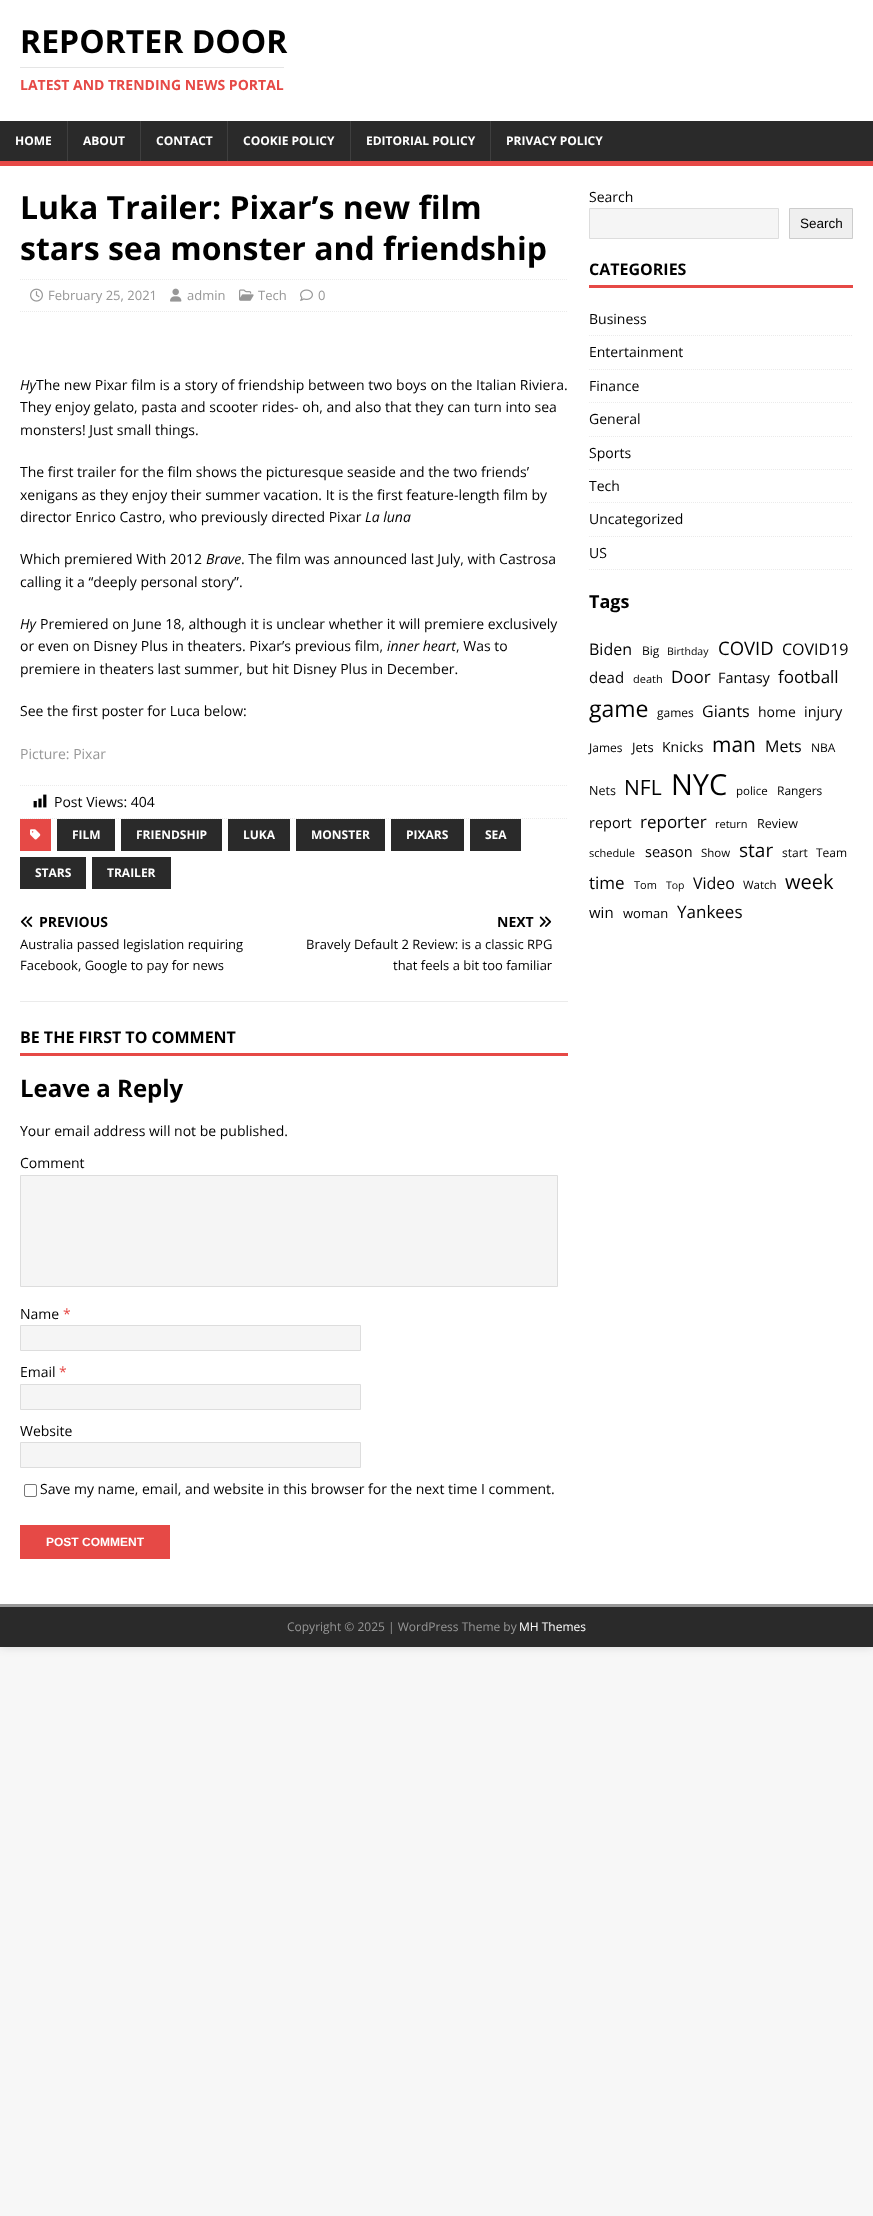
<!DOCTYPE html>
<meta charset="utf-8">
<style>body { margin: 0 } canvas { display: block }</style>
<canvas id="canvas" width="873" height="2216"></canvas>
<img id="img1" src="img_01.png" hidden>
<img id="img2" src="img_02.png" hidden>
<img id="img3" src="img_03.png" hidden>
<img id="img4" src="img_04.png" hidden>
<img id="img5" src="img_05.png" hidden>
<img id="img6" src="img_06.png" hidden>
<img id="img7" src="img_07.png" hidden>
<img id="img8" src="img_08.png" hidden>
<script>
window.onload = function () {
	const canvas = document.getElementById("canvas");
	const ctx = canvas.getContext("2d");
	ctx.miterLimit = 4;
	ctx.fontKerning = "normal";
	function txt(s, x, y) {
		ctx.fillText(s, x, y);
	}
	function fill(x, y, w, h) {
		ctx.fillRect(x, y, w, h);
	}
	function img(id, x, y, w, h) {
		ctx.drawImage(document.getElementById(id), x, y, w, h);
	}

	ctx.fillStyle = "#F7F7F7";
	fill(0, 0, 873, 2216);
	ctx.fillStyle = "rgba(50, 50, 50, 0.17)";
	ctx.filter = "blur(5px)";
	ctx.beginPath();
	ctx.rect(0, 0, 873, 1647);
	ctx.fill();
	ctx.filter = "none";
	ctx.fillStyle = "#FFFFFF";
	fill(0, 0, 873, 121);
	ctx.fillStyle = "#E5E5E5";
	fill(20, 67, 264, 1);
	ctx.fillStyle = "#2A2A2A";
	fill(0, 121, 873, 40);
	ctx.fillStyle = "#E64946";
	fill(0, 161, 873, 5);
	ctx.fillStyle = "#3F3F3F";
	fill(67, 121, 1, 40);
	fill(140, 121, 1, 40);
	fill(227, 121, 1, 40);
	fill(350, 121, 1, 40);
	fill(490, 121, 1, 40);
	ctx.fillStyle = "#FFFFFF";
	fill(0, 166, 873, 1438);
	ctx.beginPath();
	ctx.moveTo(20, 279.5);
	ctx.lineTo(568, 279.5);
	ctx.strokeStyle = "#EBEBEB";
	ctx.setLineDash([1, 1]);
	ctx.stroke();
	ctx.beginPath();
	ctx.moveTo(20, 311.5);
	ctx.lineTo(568, 311.5);
	ctx.stroke();
	img("img1", 30, 288, 13, 14);
	img("img2", 170, 288, 12, 14);
	img("img3", 239, 289, 15, 12);
	img("img4", 300, 289, 13, 12);
	ctx.beginPath();
	ctx.moveTo(20, 785.5);
	ctx.lineTo(568, 785.5);
	ctx.stroke();
	ctx.beginPath();
	ctx.moveTo(20, 818.5);
	ctx.lineTo(568, 818.5);
	ctx.stroke();
	img("img5", 33, 794, 14, 14);
	ctx.fillStyle = "#E64946";
	fill(20, 819, 31, 32);
	img("img6", 30, 829, 11, 11);
	ctx.fillStyle = "#2A2A2A";
	fill(57, 819, 58, 32);
	fill(121, 819, 101, 32);
	fill(228, 819, 62, 32);
	fill(296, 819, 89, 32);
	fill(391, 819, 73, 32);
	fill(470, 819, 51, 32);
	fill(20, 857, 66, 32);
	fill(92, 857, 79, 32);
	ctx.fillStyle = "#EBEBEB";
	fill(20, 1001, 548, 1);
	img("img7", 20, 916, 13, 11);
	img("img8", 539, 916, 13, 11);
	ctx.fillStyle = "#E64946";
	fill(20, 1053, 548, 3);
	ctx.fillStyle = "#F5F5F5";
	ctx.beginPath();
	ctx.rect(20.5, 1175.5, 537, 111);
	ctx.fill();
	ctx.strokeStyle = "#DDDDDD";
	ctx.setLineDash([]);
	ctx.stroke();
	ctx.beginPath();
	ctx.rect(20.5, 1325.5, 340, 25);
	ctx.fill();
	ctx.stroke();
	ctx.beginPath();
	ctx.rect(20.5, 1384.5, 340, 25);
	ctx.fill();
	ctx.stroke();
	ctx.beginPath();
	ctx.rect(20.5, 1442.5, 340, 25);
	ctx.fill();
	ctx.stroke();
	ctx.beginPath();
	ctx.roundRect(24.5, 1484.5, 12, 12, 1.5);
	ctx.strokeStyle = "#767676";
	ctx.stroke();
	ctx.fillStyle = "#E64946";
	fill(20, 1525, 150, 34);
	ctx.fillStyle = "#F5F5F5";
	ctx.beginPath();
	ctx.rect(589.5, 208.5, 189, 30);
	ctx.fill();
	ctx.strokeStyle = "#DDDDDD";
	ctx.stroke();
	ctx.fillStyle = "#EFEFEF";
	ctx.beginPath();
	ctx.rect(789.5, 208.5, 63, 30);
	ctx.fill();
	ctx.strokeStyle = "#CCCCCC";
	ctx.stroke();
	ctx.fillStyle = "#E64946";
	fill(589, 285, 264, 3);
	ctx.beginPath();
	ctx.moveTo(589, 335.5);
	ctx.lineTo(853, 335.5);
	ctx.strokeStyle = "#EBEBEB";
	ctx.setLineDash([1, 1]);
	ctx.stroke();
	ctx.beginPath();
	ctx.moveTo(589, 369.5);
	ctx.lineTo(853, 369.5);
	ctx.stroke();
	ctx.beginPath();
	ctx.moveTo(589, 402.5);
	ctx.lineTo(853, 402.5);
	ctx.stroke();
	ctx.beginPath();
	ctx.moveTo(589, 436.5);
	ctx.lineTo(853, 436.5);
	ctx.stroke();
	ctx.beginPath();
	ctx.moveTo(589, 469.5);
	ctx.lineTo(853, 469.5);
	ctx.stroke();
	ctx.beginPath();
	ctx.moveTo(589, 502.5);
	ctx.lineTo(853, 502.5);
	ctx.stroke();
	ctx.beginPath();
	ctx.moveTo(589, 536.5);
	ctx.lineTo(853, 536.5);
	ctx.stroke();
	ctx.beginPath();
	ctx.moveTo(589, 569.5);
	ctx.lineTo(853, 569.5);
	ctx.stroke();
	ctx.fillStyle = "#2A2A2A";
	fill(0, 1607, 873, 40);
	ctx.fillStyle = "#999999";
	fill(0, 1604, 873, 3);
	ctx.font = "bold 32px Open Sans";
	ctx.fillStyle = "#000000";
	txt("REPORTER DOOR", 20, 53);
	ctx.font = "bold 14px Open Sans";
	ctx.fillStyle = "#E64946";
	txt("LATEST AND TRENDING NEWS PORTAL", 20, 90);
	ctx.font = "bold 12px Open Sans";
	ctx.fillStyle = "#FFFFFF";
	txt("HOME", 15, 145);
	txt("ABOUT", 83, 145);
	txt("CONTACT", 156, 145);
	txt("COOKIE POLICY", 243, 145);
	txt("EDITORIAL POLICY", 366, 145);
	txt("PRIVACY POLICY", 506, 145);
	ctx.font = "bold 32px Open Sans";
	ctx.fillStyle = "#000000";
	txt("Luka Trailer: Pixar’s new film", 20, 219);
	txt("stars sea monster and friendship", 20, 260);
	ctx.font = "13px Open Sans";
	ctx.fillStyle = "#979797";
	txt("February 25, 2021", 48, 300);
	txt("admin", 187, 300);
	txt("Tech", 258, 300);
	txt("0", 318, 300);
	ctx.font = "italic 14px Open Sans";
	ctx.fillStyle = "#000000";
	txt("Hy", 20, 390);
	ctx.font = "14px Open Sans";
	txt("The new Pixar film is a story of friendship between two boys on the Italian Riviera.", 36, 390);
	txt("They enjoy gelato, pasta and scooter rides- oh, and also that they can turn into sea", 20, 412);
	txt("monsters! Just small things.", 20, 435);
	txt("The first trailer for the film shows the picturesque seaside and the two friends’", 20, 477);
	txt("xenigans as they enjoy their summer vacation. It is the first feature-length film by", 20, 500);
	txt("director Enrico Castro, who previously directed Pixar", 20, 522);
	ctx.font = "italic 14px Open Sans";
	txt("La luna", 365, 522);
	ctx.font = "14px Open Sans";
	txt("Which premiered With 2012", 20, 564);
	ctx.font = "italic 14px Open Sans";
	txt("Brave", 206, 564);
	ctx.font = "14px Open Sans";
	txt(". The film was announced last July, with Castrosa", 241, 564);
	txt("calling it a “deeply personal story”.", 20, 587);
	ctx.font = "italic 14px Open Sans";
	txt("Hy", 20, 629);
	ctx.font = "14px Open Sans";
	txt("Premiered on June 18, although it is unclear whether it will premiere exclusively", 40, 629);
	txt("or even on Disney Plus in theaters. Pixar’s previous film,", 20, 651);
	ctx.font = "italic 14px Open Sans";
	txt("inner heart", 387, 651);
	ctx.font = "14px Open Sans";
	txt(", Was to", 456, 651);
	txt("premiere in theaters last summer, but hit Disney Plus in December.", 20, 674);
	txt("See the first poster for Luca below:", 20, 716);
	ctx.fillStyle = "#979797";
	txt("Picture: Pixar", 20, 759);
	ctx.fillStyle = "#000000";
	txt("Post Views: 404", 54, 807);
	ctx.font = "bold 12px Open Sans";
	ctx.fillStyle = "#FFFFFF";
	txt("FILM", 72, 839);
	txt("FRIENDSHIP", 136, 839);
	txt("LUKA", 243, 839);
	txt("MONSTER", 311, 839);
	txt("PIXARS", 406, 839);
	txt("SEA", 485, 839);
	txt("STARS", 35, 877);
	txt("TRAILER", 107, 877);
	ctx.font = "bold 14px Open Sans";
	ctx.fillStyle = "#000000";
	txt("PREVIOUS", 39, 927);
	ctx.font = "13px Open Sans";
	txt("Australia passed legislation requiring", 20, 949);
	txt("Facebook, Google to pay for news", 20, 970);
	ctx.font = "bold 14px Open Sans";
	txt("NEXT", 497, 927);
	ctx.font = "13px Open Sans";
	txt("Bravely Default 2 Review: is a classic RPG", 306, 949);
	txt("that feels a bit too familiar", 393, 970);
	ctx.font = "bold 16px Open Sans";
	txt("BE THE FIRST TO COMMENT", 20, 1043);
	ctx.font = "bold 24px Open Sans";
	txt("Leave a Reply", 20, 1097);
	ctx.font = "14px Open Sans";
	txt("Your email address will not be published.", 20, 1136);
	txt("Comment", 20, 1168);
	txt("Name", 20, 1319);
	ctx.fillStyle = "#E64946";
	txt("*", 63, 1319);
	ctx.fillStyle = "#000000";
	txt("Email", 20, 1377);
	ctx.fillStyle = "#E64946";
	txt("*", 59, 1377);
	ctx.fillStyle = "#000000";
	txt("Website", 20, 1436);
	txt("Save my name, email, and website in this browser for the next time I comment.", 40, 1494);
	ctx.font = "bold 12px Liberation Sans";
	ctx.fillStyle = "#FFFFFF";
	txt("POST COMMENT", 46, 1546);
	ctx.font = "14px Open Sans";
	ctx.fillStyle = "#000000";
	txt("Search", 589, 202);
	ctx.font = "13.5px Liberation Sans";
	txt("Search", 800, 228);
	ctx.font = "bold 16px Open Sans";
	txt("CATEGORIES", 589, 275);
	ctx.font = "14px Open Sans";
	txt("Business", 589, 324);
	txt("Entertainment", 589, 357);
	txt("Finance", 589, 391);
	txt("General", 589, 424);
	txt("Sports", 589, 458);
	txt("Tech", 589, 491);
	txt("Uncategorized", 589, 524);
	txt("US", 589, 558);
	ctx.font = "bold 18px Open Sans";
	txt("Tags", 589, 608);
	ctx.font = "16px Open Sans";
	txt("Biden", 589, 655);
	ctx.font = "12px Open Sans";
	txt("Big", 642, 655);
	ctx.font = "10.5px Open Sans";
	txt("Birthday", 667, 655);
	ctx.font = "18.5px Open Sans";
	txt("COVID", 718, 655);
	ctx.font = "16px Open Sans";
	txt("COVID19", 782, 655);
	ctx.font = "15px Open Sans";
	txt("dead", 589, 683);
	ctx.font = "11px Open Sans";
	txt("death", 633, 683);
	ctx.font = "17px Open Sans";
	txt("Door", 671, 683);
	ctx.font = "14.5px Open Sans";
	txt("Fantasy", 718, 683);
	ctx.font = "17px Open Sans";
	txt("football", 778, 683);
	ctx.font = "23px Open Sans";
	txt("game", 589, 717);
	ctx.font = "12px Open Sans";
	txt("games", 657, 717);
	ctx.font = "16px Open Sans";
	txt("Giants", 702, 717);
	ctx.font = "14px Open Sans";
	txt("home", 758, 717);
	ctx.font = "14.5px Open Sans";
	txt("injury", 804, 717);
	ctx.font = "12px Open Sans";
	txt("James", 589, 752);
	ctx.font = "13px Open Sans";
	txt("Jets", 632, 752);
	ctx.font = "14px Open Sans";
	txt("Knicks", 662, 752);
	ctx.font = "21px Open Sans";
	txt("man", 712, 752);
	ctx.font = "16px Open Sans";
	txt("Mets", 765, 752);
	ctx.font = "12px Open Sans";
	txt("NBA", 811, 752);
	ctx.font = "12.5px Open Sans";
	txt("Nets", 589, 795);
	ctx.font = "21px Open Sans";
	txt("NFL", 624, 795);
	ctx.font = "29px Open Sans";
	txt("NYC", 671, 795);
	ctx.font = "11.5px Open Sans";
	txt("police", 736, 795);
	ctx.font = "12px Open Sans";
	txt("Rangers", 777, 795);
	ctx.font = "14.5px Open Sans";
	txt("report", 589, 828);
	ctx.font = "17px Open Sans";
	txt("reporter", 640, 828);
	ctx.font = "11px Open Sans";
	txt("return", 715, 828);
	ctx.font = "12.5px Open Sans";
	txt("Review", 757, 828);
	ctx.font = "11px Open Sans";
	txt("schedule", 589, 857);
	ctx.font = "14.5px Open Sans";
	txt("season", 645, 857);
	ctx.font = "11.5px Open Sans";
	txt("Show", 701, 857);
	ctx.font = "19px Open Sans";
	txt("star", 739, 857);
	ctx.font = "12px Open Sans";
	txt("start", 782, 857);
	txt("Team", 816, 857);
	ctx.font = "17px Open Sans";
	txt("time", 589, 889);
	ctx.font = "11px Open Sans";
	txt("Tom", 634, 889);
	ctx.font = "10.5px Open Sans";
	txt("Top", 666, 889);
	ctx.font = "16px Open Sans";
	txt("Video", 693, 889);
	ctx.font = "11.5px Open Sans";
	txt("Watch", 743, 889);
	ctx.font = "20px Open Sans";
	txt("week", 785, 889);
	ctx.font = "15px Open Sans";
	txt("win", 589, 918);
	ctx.font = "13px Open Sans";
	txt("woman", 623, 918);
	ctx.font = "17px Open Sans";
	txt("Yankees", 677, 918);
	ctx.font = "12px Open Sans";
	ctx.fillStyle = "#979797";
	txt("Copyright © 2025 | WordPress Theme by", 287, 1631);
	ctx.fillStyle = "#FFFFFF";
	txt("MH Themes", 519, 1631);
};
</script>
